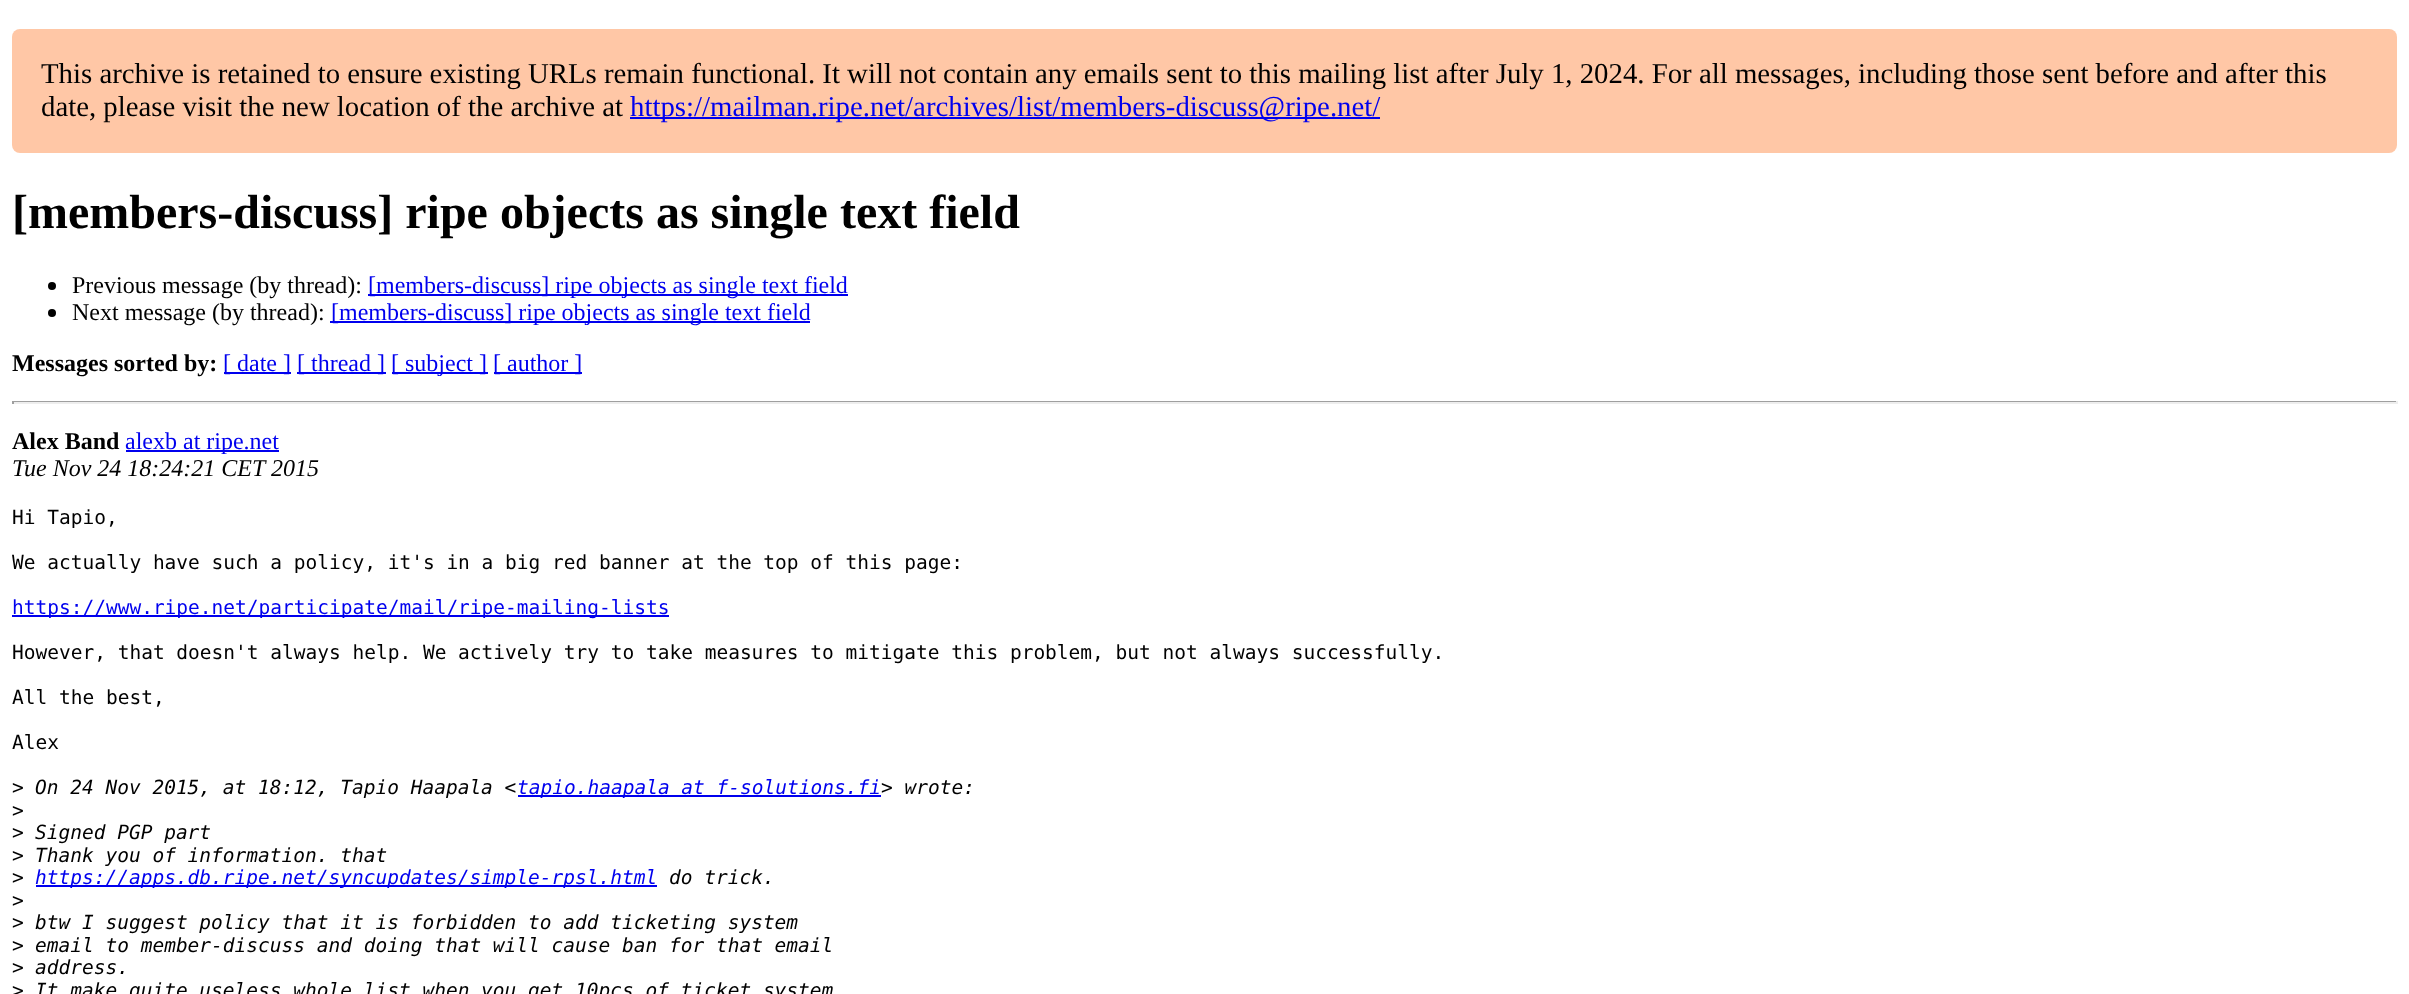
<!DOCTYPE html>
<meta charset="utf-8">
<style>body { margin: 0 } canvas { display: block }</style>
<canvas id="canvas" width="2409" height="994"></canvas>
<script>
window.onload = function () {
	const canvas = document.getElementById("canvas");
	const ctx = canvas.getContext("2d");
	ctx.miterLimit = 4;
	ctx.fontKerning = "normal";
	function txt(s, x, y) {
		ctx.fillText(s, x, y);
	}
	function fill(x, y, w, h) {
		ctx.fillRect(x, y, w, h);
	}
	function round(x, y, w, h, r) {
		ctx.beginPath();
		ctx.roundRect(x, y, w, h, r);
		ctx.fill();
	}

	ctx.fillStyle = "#FFFFFF";
	fill(0, 0, 2409, 994);
	ctx.fillStyle = "#FFC7A6";
	round(12, 29, 2385, 124, 8);
	ctx.fillStyle = "#0000EE";
	fill(630, 117, 750, 2);
	ctx.fillStyle = "#000000";
	ctx.beginPath();
	ctx.arc(52, 286, 4, 0, Math.PI * 2);
	ctx.fill();
	ctx.fillStyle = "#0000EE";
	fill(368, 294, 480, 2);
	ctx.fillStyle = "#000000";
	ctx.beginPath();
	ctx.arc(52, 313, 4, 0, Math.PI * 2);
	ctx.fill();
	ctx.fillStyle = "#0000EE";
	fill(330, 321, 480, 2);
	fill(224, 372, 67, 2);
	fill(297, 372, 89, 2);
	fill(392, 372, 96, 2);
	fill(494, 372, 88, 2);
	ctx.fillStyle = "#9F9F9F";
	fill(12, 401, 2385, 1);
	ctx.fillStyle = "#EEEEEE";
	fill(2396, 401, 2, 3);
	fill(12, 402, 2385, 2);
	ctx.fillStyle = "#9F9F9F";
	fill(12, 401, 2, 3);
	ctx.fillStyle = "#0000EE";
	fill(126, 450, 153, 2);
	fill(12, 615, 657, 2);
	fill(518, 795, 363, 2);
	fill(36, 885, 621, 2);
	ctx.font = "28.8px Liberation Serif";
	ctx.fillStyle = "#000000";
	txt("This archive is retained to ensure existing URLs remain functional. It will not contain any emails sent to this mailing list after July 1, 2024. For all messages, including those sent before and after this", 41, 83);
	txt("date, please visit the new location of the archive at", 41, 116);
	ctx.fillStyle = "#0000EE";
	txt("https://mailman.ripe.net/archives/list/members-discuss@ripe.net/", 630, 116);
	ctx.font = "bold 48px Liberation Serif";
	ctx.fillStyle = "#000000";
	txt("[members-discuss] ripe objects as single text field", 12, 228);
	ctx.font = "24px Liberation Serif";
	txt("Previous message (by thread):", 72, 293);
	ctx.fillStyle = "#0000EE";
	txt("[members-discuss] ripe objects as single text field", 368, 293);
	ctx.fillStyle = "#000000";
	txt("Next message (by thread):", 72, 320);
	ctx.fillStyle = "#0000EE";
	txt("[members-discuss] ripe objects as single text field", 331, 320);
	ctx.font = "bold 24px Liberation Serif";
	ctx.fillStyle = "#000000";
	txt("Messages sorted by:", 12, 371);
	ctx.font = "24px Liberation Serif";
	ctx.fillStyle = "#0000EE";
	txt("[ date ]", 223, 371);
	txt("[ thread ]", 297, 371);
	txt("[ subject ]", 391, 371);
	txt("[ author ]", 493, 371);
	ctx.font = "bold 24px Liberation Serif";
	ctx.fillStyle = "#000000";
	txt("Alex Band", 12, 449);
	ctx.font = "24px Liberation Serif";
	ctx.fillStyle = "#0000EE";
	txt("alexb at ripe.net", 125, 449);
	ctx.font = "italic 24px Liberation Serif";
	ctx.fillStyle = "#000000";
	txt("Tue Nov 24 18:24:21 CET 2015", 12, 476);
	ctx.font = "19.5px DejaVu Sans Mono";
	txt("Hi Tapio,", 12, 524);
	txt("We actually have such a policy, it's in a big red banner at the top of this page:", 12, 569);
	ctx.fillStyle = "#0000EE";
	txt("https://www.ripe.net/participate/mail/ripe-mailing-lists", 12, 614);
	ctx.fillStyle = "#000000";
	txt("However, that doesn't always help. We actively try to take measures to mitigate this problem, but not always successfully.", 12, 659);
	txt("All the best,", 12, 704);
	txt("Alex", 12, 749);
	txt(">", 12, 794);
	ctx.font = "italic 19.5px DejaVu Sans Mono";
	txt("On 24 Nov 2015, at 18:12, Tapio Haapala <", 35, 794);
	ctx.fillStyle = "#0000EE";
	txt("tapio.haapala at f-solutions.fi", 517, 794);
	ctx.fillStyle = "#000000";
	txt("> wrote:", 881, 794);
	ctx.font = "19.5px DejaVu Sans Mono";
	txt(">", 12, 817);
	txt(">", 12, 839);
	ctx.font = "italic 19.5px DejaVu Sans Mono";
	txt("Signed PGP part", 35, 839);
	ctx.font = "19.5px DejaVu Sans Mono";
	txt(">", 12, 862);
	ctx.font = "italic 19.5px DejaVu Sans Mono";
	txt("Thank you of information. that", 35, 862);
	ctx.font = "19.5px DejaVu Sans Mono";
	txt(">", 12, 884);
	ctx.font = "italic 19.5px DejaVu Sans Mono";
	ctx.fillStyle = "#0000EE";
	txt("https://apps.db.ripe.net/syncupdates/simple-rpsl.html", 35, 884);
	ctx.fillStyle = "#000000";
	txt("do trick.", 669, 884);
	ctx.font = "19.5px DejaVu Sans Mono";
	txt(">", 12, 907);
	txt(">", 12, 929);
	ctx.font = "italic 19.5px DejaVu Sans Mono";
	txt("btw I suggest policy that it is forbidden to add ticketing system", 35, 929);
	ctx.font = "19.5px DejaVu Sans Mono";
	txt(">", 12, 952);
	ctx.font = "italic 19.5px DejaVu Sans Mono";
	txt("email to member-discuss and doing that will cause ban for that email", 35, 952);
	ctx.font = "19.5px DejaVu Sans Mono";
	txt(">", 12, 974);
	ctx.font = "italic 19.5px DejaVu Sans Mono";
	txt("address.", 35, 974);
	ctx.font = "19.5px DejaVu Sans Mono";
	txt(">", 12, 997);
	ctx.font = "italic 19.5px DejaVu Sans Mono";
	txt("It make quite useless whole list when you get 10pcs of ticket system", 35, 997);
};
</script>
